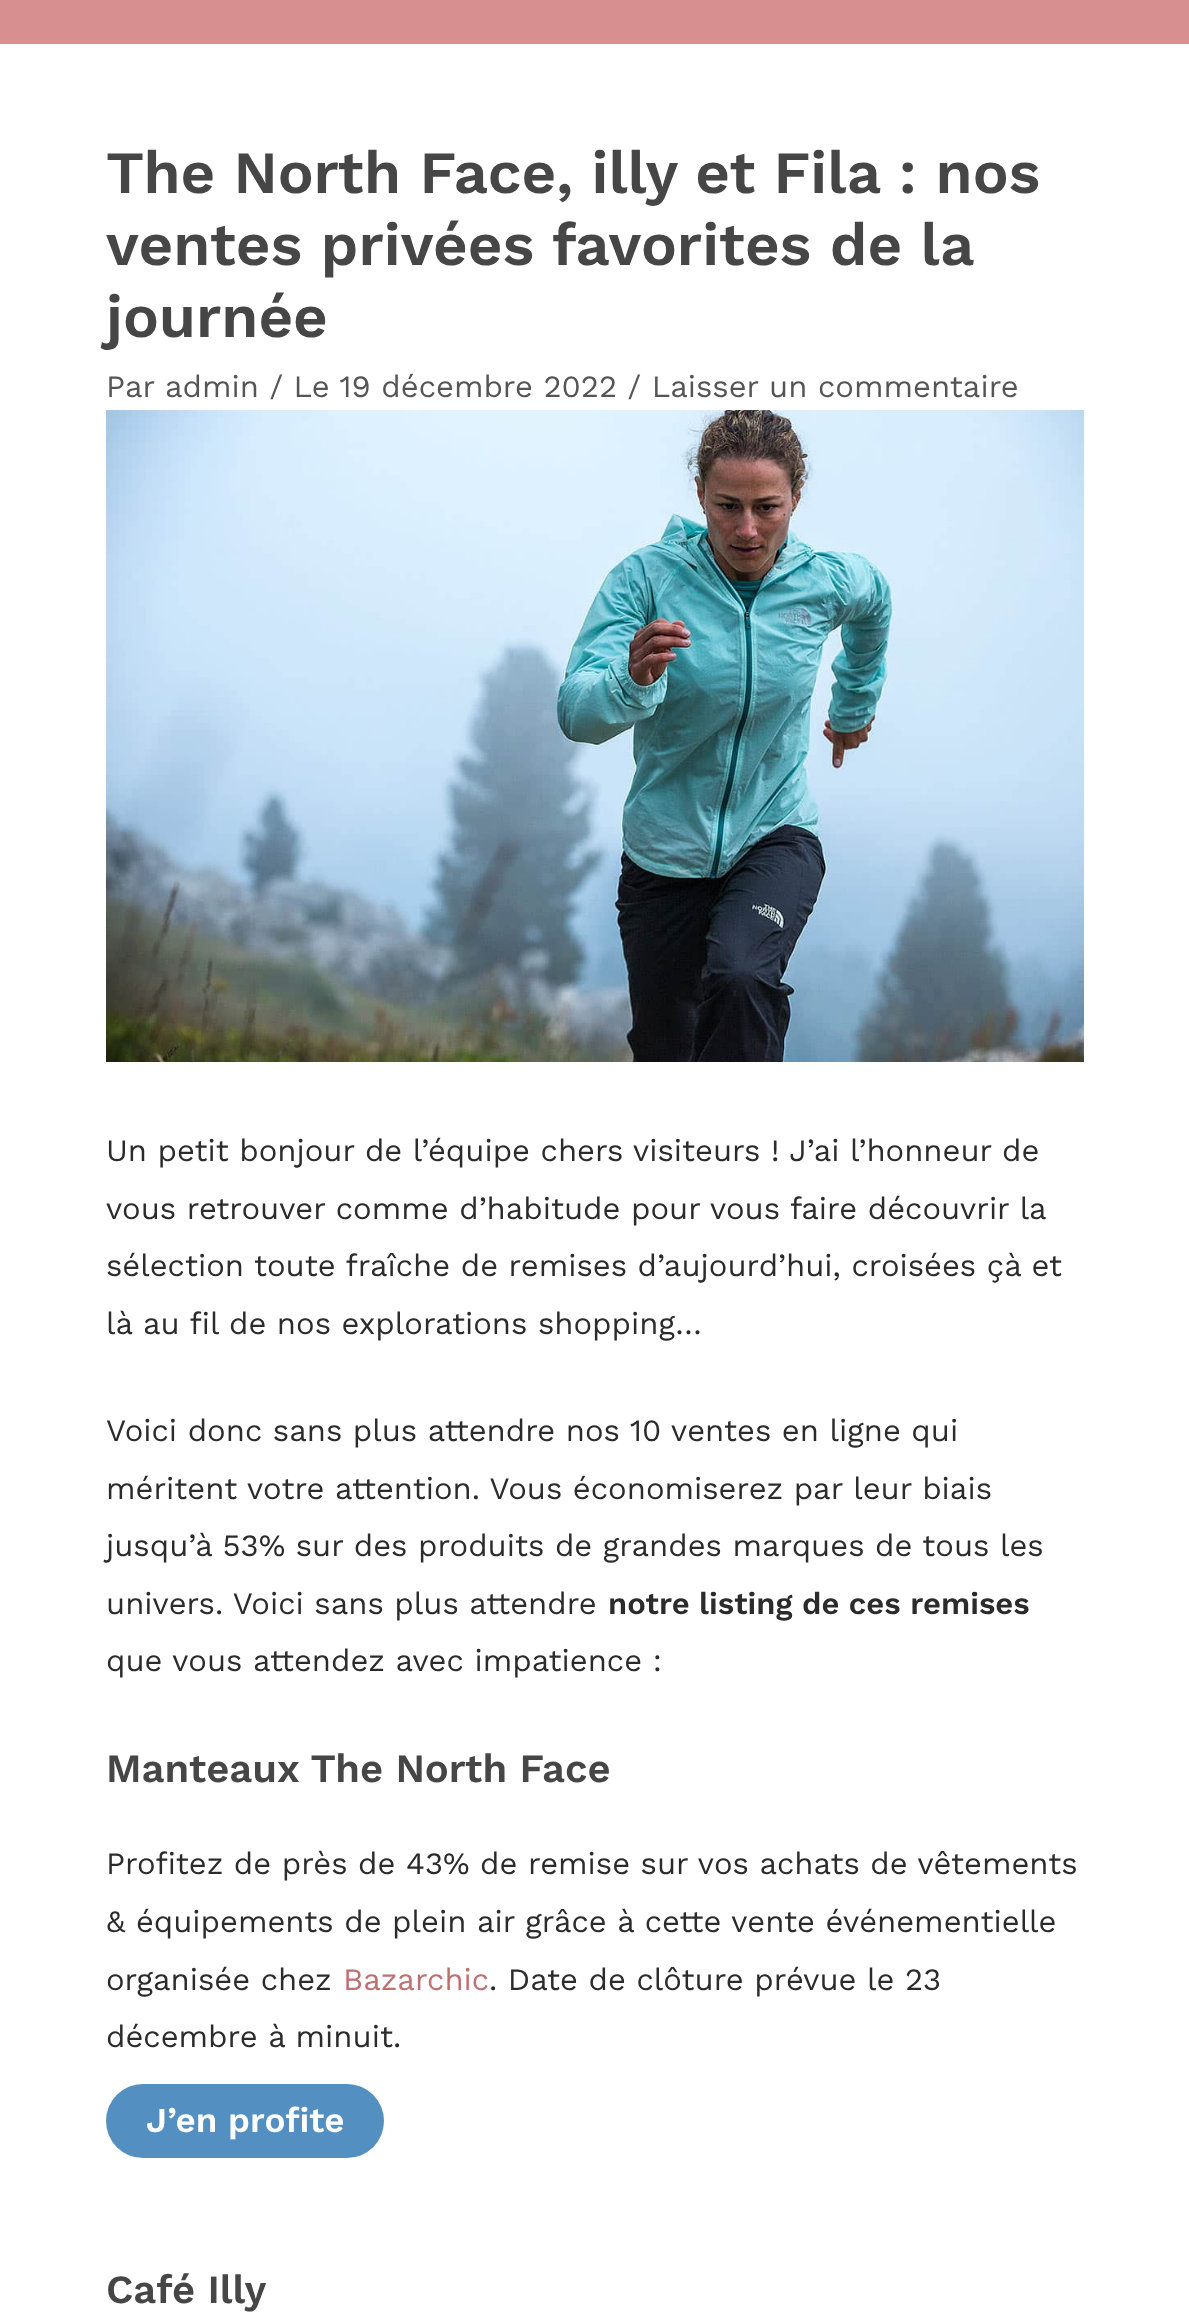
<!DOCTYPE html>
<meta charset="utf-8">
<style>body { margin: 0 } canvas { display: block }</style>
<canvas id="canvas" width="1189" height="2318"></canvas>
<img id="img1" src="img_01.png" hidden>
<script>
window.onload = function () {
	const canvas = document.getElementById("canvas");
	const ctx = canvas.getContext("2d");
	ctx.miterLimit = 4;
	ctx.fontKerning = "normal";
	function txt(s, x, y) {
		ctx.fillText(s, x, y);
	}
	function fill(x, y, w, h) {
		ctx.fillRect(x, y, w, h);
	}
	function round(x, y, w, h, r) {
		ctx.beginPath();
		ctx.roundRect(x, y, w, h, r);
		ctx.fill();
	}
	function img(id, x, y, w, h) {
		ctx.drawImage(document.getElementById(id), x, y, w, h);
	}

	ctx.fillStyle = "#FFFFFF";
	fill(0, 0, 1189, 2318);
	ctx.fillStyle = "#D88F8F";
	fill(0, 0, 1189, 44);
	img("img1", 106, 410, 978, 652);
	ctx.fillStyle = "#538FC1";
	round(106, 2084, 278, 74, 37);
	ctx.font = "600 60px Work Sans";
	ctx.fillStyle = "#464646";
	txt("The North Face, illy et Fila : nos", 106, 193);
	txt("ventes privées favorites de la", 106, 265);
	txt("journée", 106, 337);
	ctx.font = "31px Work Sans";
	ctx.fillStyle = "#555555";
	txt("Par admin / Le 19 décembre 2022 / Laisser un commentaire", 106, 397);
	ctx.fillStyle = "#2B2B2B";
	txt("Un petit bonjour de l’équipe chers visiteurs ! J’ai l’honneur de", 106, 1161);
	txt("vous retrouver comme d’habitude pour vous faire découvrir la", 106, 1219);
	txt("sélection toute fraîche de remises d’aujourd’hui, croisées çà et", 106, 1276);
	txt("là au fil de nos explorations shopping…", 106, 1334);
	txt("Voici donc sans plus attendre nos 10 ventes en ligne qui", 106, 1441);
	txt("méritent votre attention. Vous économiserez par leur biais", 106, 1499);
	txt("jusqu’à 53% sur des produits de grandes marques de tous les", 106, 1556);
	txt("univers. Voici sans plus attendre", 106, 1614);
	ctx.font = "600 31px Work Sans";
	txt("notre listing de ces remises", 608, 1614);
	ctx.font = "31px Work Sans";
	txt("que vous attendez avec impatience :", 106, 1671);
	ctx.font = "600 40px Work Sans";
	ctx.fillStyle = "#464646";
	txt("Manteaux The North Face", 106, 1782);
	ctx.font = "31px Work Sans";
	ctx.fillStyle = "#2B2B2B";
	txt("Profitez de près de 43% de remise sur vos achats de vêtements", 106, 1874);
	txt("& équipements de plein air grâce à cette vente événementielle", 106, 1932);
	txt("organisée chez", 106, 1990);
	ctx.fillStyle = "#BE7070";
	txt("Bazarchic", 343, 1990);
	ctx.fillStyle = "#2B2B2B";
	txt(". Date de clôture prévue le 23", 489, 1990);
	txt("décembre à minuit.", 106, 2047);
	ctx.font = "600 35px Work Sans";
	ctx.fillStyle = "#FFFFFF";
	txt("J’en profite", 146, 2132);
	ctx.font = "600 40px Work Sans";
	ctx.fillStyle = "#464646";
	txt("Café Illy", 106, 2303);
};
</script>
